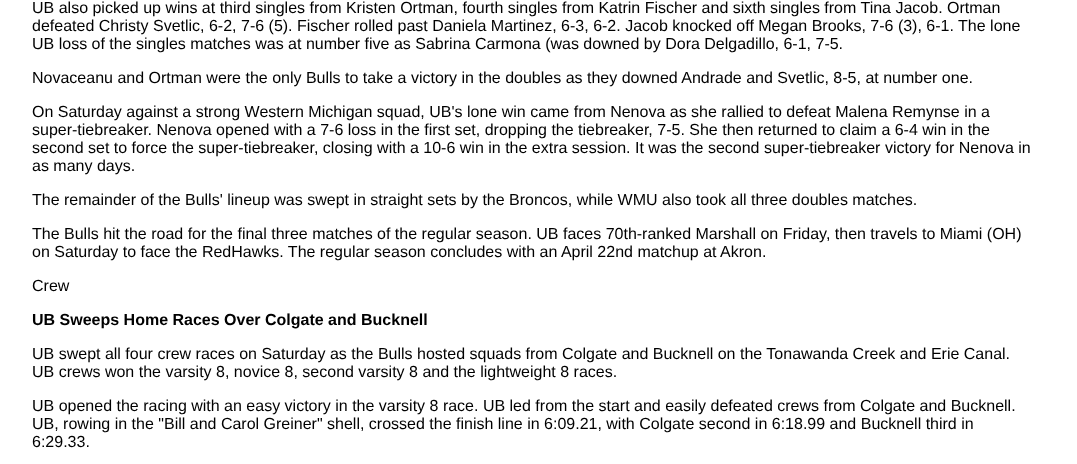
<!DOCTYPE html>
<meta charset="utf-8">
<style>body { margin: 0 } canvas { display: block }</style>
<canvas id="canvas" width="1077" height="464"></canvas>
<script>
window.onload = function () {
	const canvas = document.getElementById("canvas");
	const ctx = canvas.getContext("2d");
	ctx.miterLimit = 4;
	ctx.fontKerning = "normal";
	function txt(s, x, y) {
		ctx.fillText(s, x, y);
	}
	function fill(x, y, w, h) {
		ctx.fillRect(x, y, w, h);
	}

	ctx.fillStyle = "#FFFFFF";
	fill(0, 0, 1077, 464);
	ctx.font = "16px Liberation Sans";
	ctx.fillStyle = "#000000";
	txt("UB also picked up wins at third singles from Kristen Ortman, fourth singles from Katrin Fischer and sixth singles from Tina Jacob. Ortman", 32, 13);
	txt("defeated Christy Svetlic, 6-2, 7-6 (5). Fischer rolled past Daniela Martinez, 6-3, 6-2. Jacob knocked off Megan Brooks, 7-6 (3), 6-1. The lone", 32, 31);
	txt("UB loss of the singles matches was at number five as Sabrina Carmona (was downed by Dora Delgadillo, 6-1, 7-5.", 32, 49);
	txt("Novaceanu and Ortman were the only Bulls to take a victory in the doubles as they downed Andrade and Svetlic, 8-5, at number one.", 32, 83);
	txt("On Saturday against a strong Western Michigan squad, UB's lone win came from Nenova as she rallied to defeat Malena Remynse in a", 32, 117);
	txt("super-tiebreaker. Nenova opened with a 7-6 loss in the first set, dropping the tiebreaker, 7-5. She then returned to claim a 6-4 win in the", 32, 135);
	txt("second set to force the super-tiebreaker, closing with a 10-6 win in the extra session. It was the second super-tiebreaker victory for Nenova in", 32, 153);
	txt("as many days.", 32, 171);
	txt("The remainder of the Bulls' lineup was swept in straight sets by the Broncos, while WMU also took all three doubles matches.", 32, 205);
	txt("The Bulls hit the road for the final three matches of the regular season. UB faces 70th-ranked Marshall on Friday, then travels to Miami (OH)", 32, 239);
	txt("on Saturday to face the RedHawks. The regular season concludes with an April 22nd matchup at Akron.", 32, 257);
	txt("Crew", 32, 291);
	ctx.font = "bold 16px Liberation Sans";
	txt("UB Sweeps Home Races Over Colgate and Bucknell", 32, 325);
	ctx.font = "16px Liberation Sans";
	txt("UB swept all four crew races on Saturday as the Bulls hosted squads from Colgate and Bucknell on the Tonawanda Creek and Erie Canal.", 32, 359);
	txt("UB crews won the varsity 8, novice 8, second varsity 8 and the lightweight 8 races.", 32, 377);
	txt("UB opened the racing with an easy victory in the varsity 8 race. UB led from the start and easily defeated crews from Colgate and Bucknell.", 32, 411);
	txt("UB, rowing in the \"Bill and Carol Greiner\" shell, crossed the finish line in 6:09.21, with Colgate second in 6:18.99 and Bucknell third in", 32, 429);
	txt("6:29.33.", 32, 447);
};
</script>
